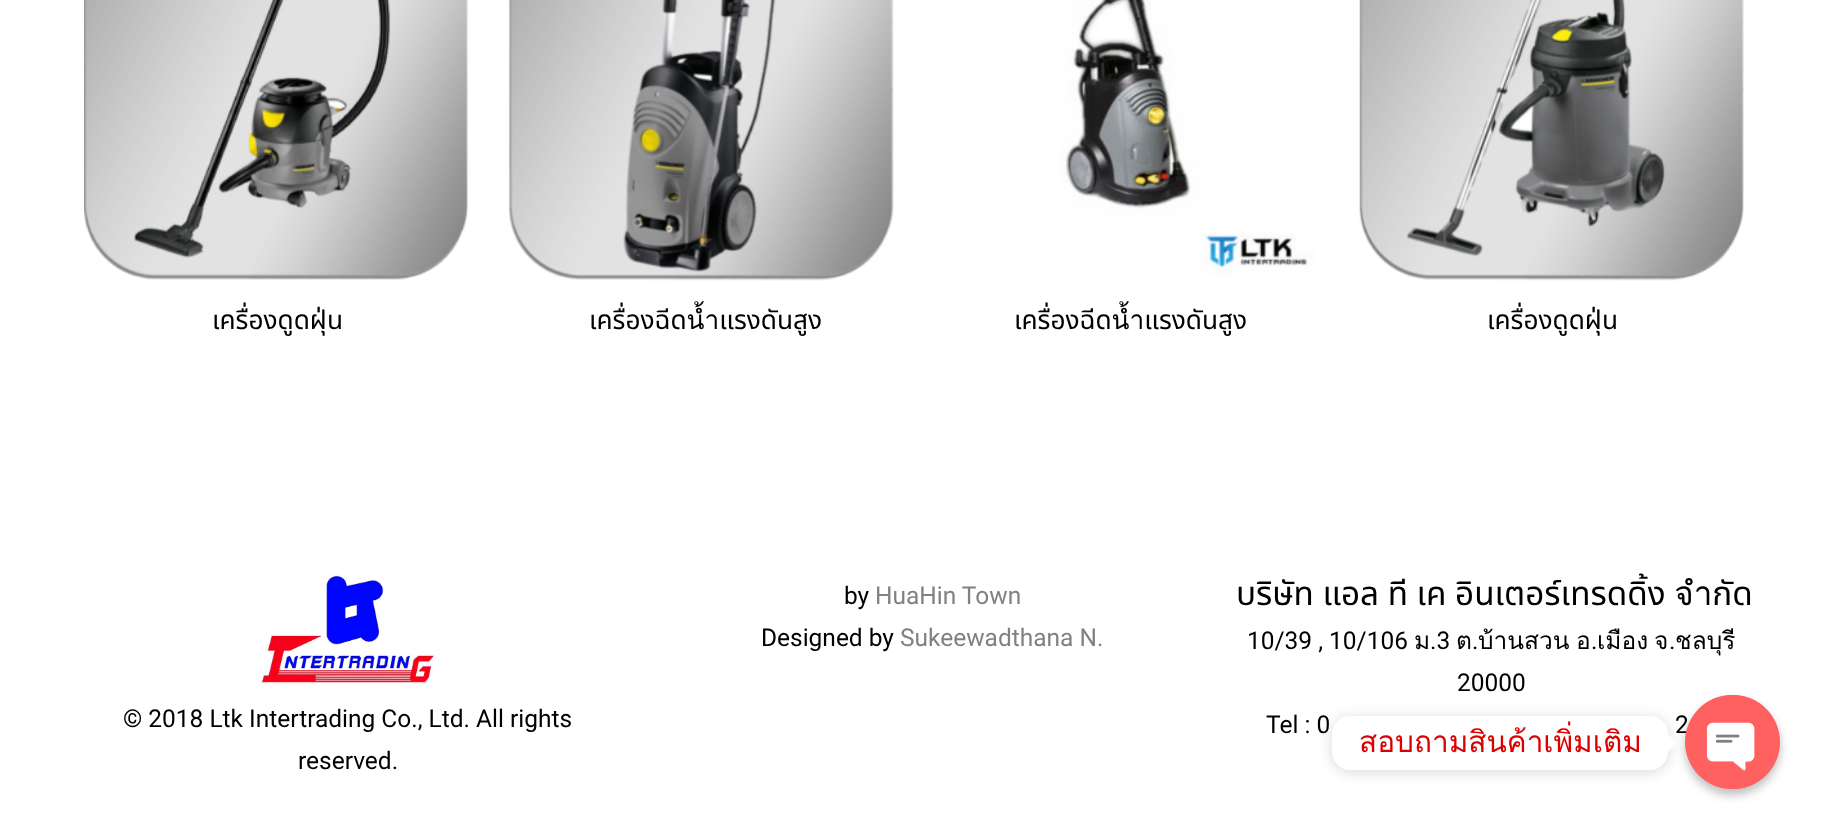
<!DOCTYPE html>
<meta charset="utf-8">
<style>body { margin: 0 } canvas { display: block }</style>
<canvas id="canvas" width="1829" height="832"></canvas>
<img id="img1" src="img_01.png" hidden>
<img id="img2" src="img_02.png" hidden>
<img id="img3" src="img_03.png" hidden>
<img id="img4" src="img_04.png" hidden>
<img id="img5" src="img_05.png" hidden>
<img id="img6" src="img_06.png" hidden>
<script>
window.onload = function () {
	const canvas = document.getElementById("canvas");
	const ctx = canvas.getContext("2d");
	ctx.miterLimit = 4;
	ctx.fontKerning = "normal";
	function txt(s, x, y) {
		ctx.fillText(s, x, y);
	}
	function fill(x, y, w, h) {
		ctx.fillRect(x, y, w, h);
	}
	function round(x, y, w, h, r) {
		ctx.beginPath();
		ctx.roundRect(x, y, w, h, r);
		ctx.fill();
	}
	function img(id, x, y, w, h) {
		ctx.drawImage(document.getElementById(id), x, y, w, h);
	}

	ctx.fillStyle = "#FFFFFF";
	fill(0, 0, 1829, 832);
	img("img1", 84, 0, 385, 280);
	img("img2", 509, 0, 385, 281);
	img("img3", 1060, 0, 255, 276);
	img("img4", 1359, 0, 385, 281);
	img("img5", 261, 574, 174, 111);
	ctx.fillStyle = "rgba(0, 0, 0, 0.15)";
	ctx.filter = "blur(7px)";
	ctx.beginPath();
	ctx.roundRect(1332, 718, 336, 54, 18);
	ctx.fill();
	ctx.filter = "none";
	ctx.fillStyle = "#FFFFFF";
	round(1332, 716, 336, 54, 18);
	ctx.beginPath();
	ctx.moveTo(1668, 751.5);
	ctx.lineTo(1668, 734);
	ctx.lineTo(1676.5, 743);
	ctx.closePath();
	ctx.fill();
	ctx.fillStyle = "rgba(0, 0, 0, 0.25)";
	ctx.filter = "blur(5px)";
	ctx.beginPath();
	ctx.roundRect(1685, 700, 95, 95, 47.5);
	ctx.fill();
	ctx.filter = "none";
	ctx.font = "26.25px Noto Sans Thai";
	ctx.fillStyle = "#000000";
	txt("เครื่องดูดฝุ่น", 212, 329);
	txt("เครื่องฉีดน้ำแรงดันสูง", 589, 329);
	txt("เครื่องฉีดน้ำแรงดันสูง", 1014, 329);
	txt("เครื่องดูดฝุ่น", 1487, 329);
	ctx.font = "24.5px Roboto";
	txt("by", 844, 604);
	ctx.fillStyle = "#818181";
	txt("HuaHin Town", 875, 604);
	ctx.fillStyle = "#000000";
	txt("Designed by", 761, 646);
	ctx.fillStyle = "#818181";
	txt("Sukeewadthana N.", 900, 646);
	ctx.font = "33.25px Noto Sans Thai";
	ctx.fillStyle = "#000000";
	txt("บริษัท แอล ที เค อินเตอร์เทรดดิ้ง จำกัด", 1236, 605);
	ctx.font = "24.5px Roboto";
	txt("10/39 , 10/106", 1247, 649);
	ctx.font = "24.5px Loma";
	txt("ม", 1414, 649);
	ctx.font = "24.5px Roboto";
	txt(".3", 1430, 649);
	ctx.font = "24.5px Loma";
	txt("ต", 1456, 649);
	txt("อ", 1576, 649);
	txt("จ", 1654, 649);
	txt("ชลบุรี", 1675, 649);
	ctx.font = "24.5px Roboto";
	txt(".", 1472, 649);
	ctx.font = "24.5px Loma";
	txt("บ้านสวน", 1478, 649);
	ctx.font = "24.5px Roboto";
	txt(".", 1591, 649);
	ctx.font = "24.5px Loma";
	txt("เมือง", 1597, 649);
	ctx.font = "24.5px Roboto";
	txt(".", 1669, 649);
	txt("20000", 1457, 691);
	txt("Tel : 0", 1266, 733);
	txt("2", 1675, 733);
	txt("© 2018 Ltk Intertrading Co., Ltd. All rights", 123, 727);
	txt("reserved.", 298, 769);
	ctx.font = "29.75px Loma";
	ctx.fillStyle = "#DD0000";
	txt("สอบถามสินค้าเพิ่มเติม", 1359, 752);
	ctx.fillStyle = "#FF6060";
	round(1685, 695, 95, 94, 47);
	img("img6", 1702, 695, 61, 94);
};
</script>
